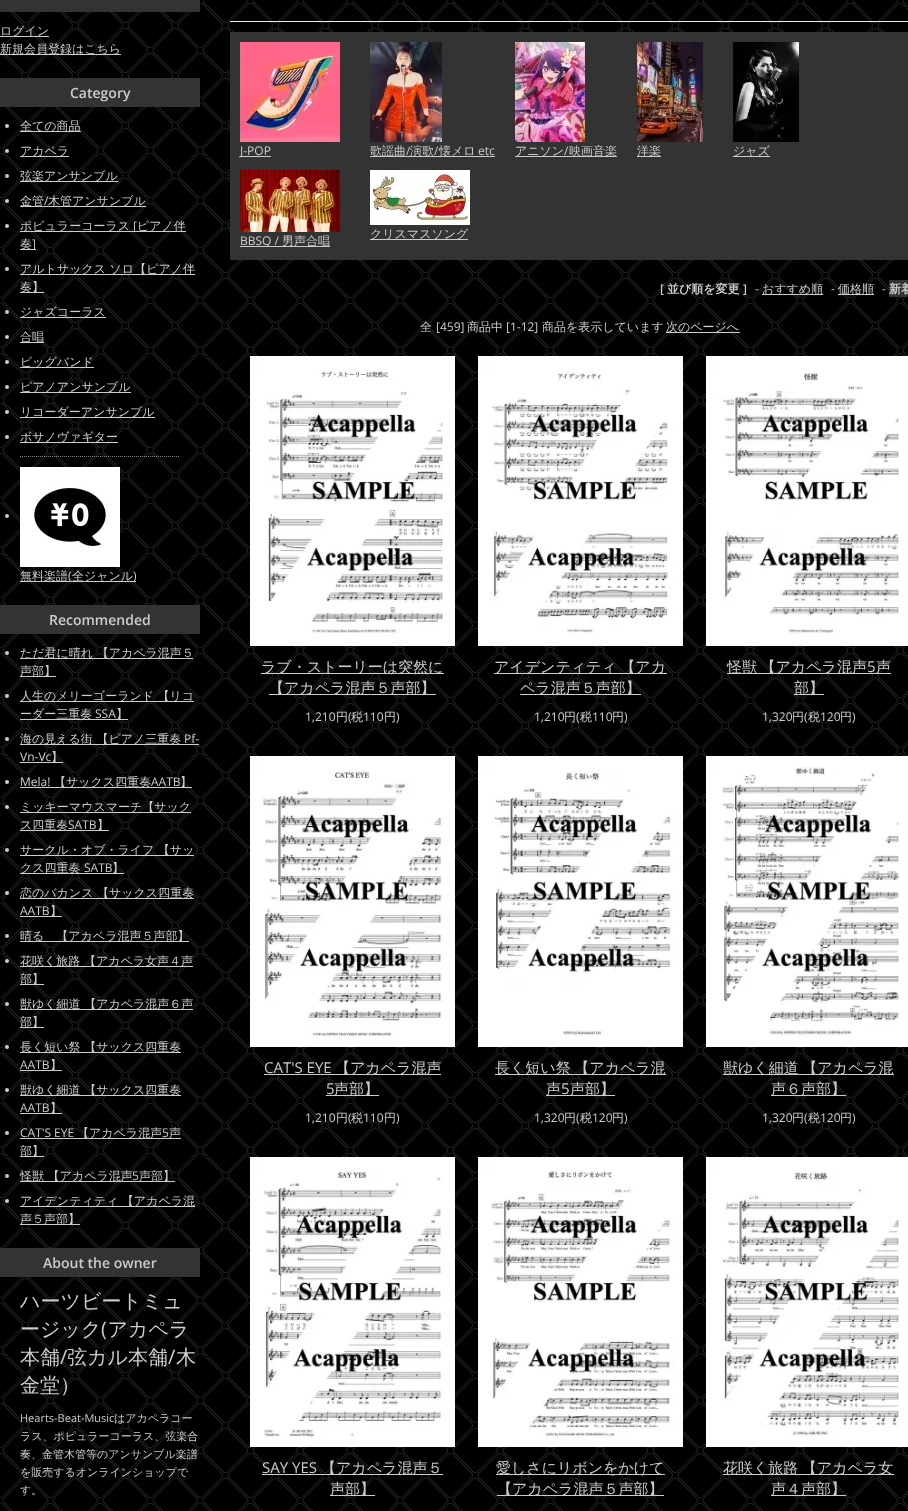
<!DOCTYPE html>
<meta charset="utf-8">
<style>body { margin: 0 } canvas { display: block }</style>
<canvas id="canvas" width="908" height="1511"></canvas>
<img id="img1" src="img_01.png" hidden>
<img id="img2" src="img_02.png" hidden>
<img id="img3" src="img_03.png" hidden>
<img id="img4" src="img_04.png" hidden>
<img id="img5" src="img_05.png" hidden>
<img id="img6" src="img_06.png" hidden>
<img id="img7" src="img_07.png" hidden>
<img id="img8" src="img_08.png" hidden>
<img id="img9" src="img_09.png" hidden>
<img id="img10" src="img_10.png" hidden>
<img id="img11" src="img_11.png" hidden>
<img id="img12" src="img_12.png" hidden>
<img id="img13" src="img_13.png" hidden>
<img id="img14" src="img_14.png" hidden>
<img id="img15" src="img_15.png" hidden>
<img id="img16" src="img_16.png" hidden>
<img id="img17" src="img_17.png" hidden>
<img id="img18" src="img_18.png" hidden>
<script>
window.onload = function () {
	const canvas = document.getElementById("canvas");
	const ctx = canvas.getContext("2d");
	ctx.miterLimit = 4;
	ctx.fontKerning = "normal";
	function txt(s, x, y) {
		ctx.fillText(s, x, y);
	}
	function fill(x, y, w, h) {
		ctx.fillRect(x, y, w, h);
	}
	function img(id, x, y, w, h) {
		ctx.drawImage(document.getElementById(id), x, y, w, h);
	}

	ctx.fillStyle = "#FFFFFF";
	fill(0, 0, 908, 1511);
	img("img1", 0, 0, 908, 1511);
	ctx.fillStyle = "#333333";
	fill(0, 0, 200, 12);
	ctx.fillStyle = "#CCCCCC";
	fill(0, 36, 49, 1);
	fill(0, 54, 121, 1);
	ctx.fillStyle = "#333333";
	fill(0, 78, 200, 29);
	ctx.fillStyle = "#CCCCCC";
	ctx.beginPath();
	ctx.arc(7, 126, 2, 0, Math.PI * 2);
	ctx.fill();
	fill(20, 131, 61, 1);
	ctx.beginPath();
	ctx.arc(7, 151, 2, 0, Math.PI * 2);
	ctx.fill();
	fill(20, 156, 49, 1);
	ctx.beginPath();
	ctx.arc(7, 176, 2, 0, Math.PI * 2);
	ctx.fill();
	fill(20, 181, 98, 1);
	ctx.beginPath();
	ctx.arc(7, 201, 2, 0, Math.PI * 2);
	ctx.fill();
	fill(20, 206, 126, 1);
	ctx.beginPath();
	ctx.arc(7, 226, 2, 0, Math.PI * 2);
	ctx.fill();
	fill(20, 231, 166, 1);
	fill(20, 249, 16, 1);
	ctx.beginPath();
	ctx.arc(7, 269, 2, 0, Math.PI * 2);
	ctx.fill();
	fill(20, 274, 175, 1);
	fill(20, 292, 24, 1);
	ctx.beginPath();
	ctx.arc(7, 312, 2, 0, Math.PI * 2);
	ctx.fill();
	fill(20, 317, 86, 1);
	ctx.beginPath();
	ctx.arc(7, 337, 2, 0, Math.PI * 2);
	ctx.fill();
	fill(20, 342, 24, 1);
	ctx.beginPath();
	ctx.arc(7, 362, 2, 0, Math.PI * 2);
	ctx.fill();
	fill(20, 367, 74, 1);
	ctx.beginPath();
	ctx.arc(7, 387, 2, 0, Math.PI * 2);
	ctx.fill();
	fill(20, 392, 111, 1);
	ctx.beginPath();
	ctx.arc(7, 412, 2, 0, Math.PI * 2);
	ctx.fill();
	fill(20, 417, 135, 1);
	ctx.beginPath();
	ctx.arc(7, 437, 2, 0, Math.PI * 2);
	ctx.fill();
	fill(20, 442, 98, 1);
	ctx.beginPath();
	ctx.moveTo(20, 456.5);
	ctx.lineTo(180, 456.5);
	ctx.strokeStyle = "#838383";
	ctx.setLineDash([1, 1]);
	ctx.stroke();
	ctx.beginPath();
	ctx.arc(7, 516, 2, 0, Math.PI * 2);
	ctx.fill();
	img("img2", 20, 467, 100, 100);
	fill(20, 581, 116, 1);
	ctx.fillStyle = "#333333";
	fill(0, 605, 200, 29);
	ctx.fillStyle = "#CCCCCC";
	ctx.beginPath();
	ctx.arc(7, 653, 2, 0, Math.PI * 2);
	ctx.fill();
	fill(20, 658, 173, 1);
	fill(20, 676, 36, 1);
	ctx.beginPath();
	ctx.arc(7, 696, 2, 0, Math.PI * 2);
	ctx.fill();
	fill(20, 701, 174, 1);
	fill(20, 719, 108, 1);
	ctx.beginPath();
	ctx.arc(7, 739, 2, 0, Math.PI * 2);
	ctx.fill();
	fill(20, 744, 179, 1);
	fill(20, 762, 43, 1);
	ctx.beginPath();
	ctx.arc(7, 782, 2, 0, Math.PI * 2);
	ctx.fill();
	fill(20, 787, 172, 1);
	ctx.beginPath();
	ctx.arc(7, 807, 2, 0, Math.PI * 2);
	ctx.fill();
	fill(20, 812, 171, 1);
	fill(20, 830, 89, 1);
	ctx.beginPath();
	ctx.arc(7, 850, 2, 0, Math.PI * 2);
	ctx.fill();
	fill(20, 855, 174, 1);
	fill(20, 873, 104, 1);
	ctx.beginPath();
	ctx.arc(7, 893, 2, 0, Math.PI * 2);
	ctx.fill();
	fill(20, 898, 174, 1);
	fill(20, 916, 42, 1);
	ctx.beginPath();
	ctx.arc(7, 936, 2, 0, Math.PI * 2);
	ctx.fill();
	fill(20, 941, 169, 1);
	ctx.beginPath();
	ctx.arc(7, 961, 2, 0, Math.PI * 2);
	ctx.fill();
	fill(20, 966, 173, 1);
	fill(20, 984, 24, 1);
	ctx.beginPath();
	ctx.arc(7, 1004, 2, 0, Math.PI * 2);
	ctx.fill();
	fill(20, 1009, 173, 1);
	fill(20, 1027, 24, 1);
	ctx.beginPath();
	ctx.arc(7, 1047, 2, 0, Math.PI * 2);
	ctx.fill();
	fill(20, 1052, 161, 1);
	fill(20, 1070, 42, 1);
	ctx.beginPath();
	ctx.arc(7, 1090, 2, 0, Math.PI * 2);
	ctx.fill();
	fill(20, 1095, 161, 1);
	fill(20, 1113, 42, 1);
	ctx.beginPath();
	ctx.arc(7, 1133, 2, 0, Math.PI * 2);
	ctx.fill();
	fill(20, 1138, 161, 1);
	fill(20, 1156, 24, 1);
	ctx.beginPath();
	ctx.arc(7, 1176, 2, 0, Math.PI * 2);
	ctx.fill();
	fill(20, 1181, 155, 1);
	ctx.beginPath();
	ctx.arc(7, 1201, 2, 0, Math.PI * 2);
	ctx.fill();
	fill(20, 1206, 175, 1);
	fill(20, 1224, 60, 1);
	ctx.fillStyle = "#333333";
	fill(0, 1248, 200, 29);
	ctx.fillStyle = "#EEEEEE";
	fill(230, 21, 678, 1);
	ctx.fillStyle = "#333333";
	fill(230, 32, 678, 228);
	img("img3", 240, 42, 100, 100);
	ctx.fillStyle = "#CCCCCC";
	fill(240, 156, 31, 1);
	img("img4", 370, 42, 72, 100);
	fill(370, 156, 125, 1);
	img("img5", 515, 42, 70, 100);
	fill(515, 156, 102, 1);
	img("img6", 637, 42, 66, 100);
	fill(637, 156, 24, 1);
	img("img7", 733, 42, 66, 100);
	fill(733, 156, 37, 1);
	img("img8", 240, 170, 100, 62);
	fill(240, 246, 90, 1);
	img("img9", 370, 170, 100, 55);
	fill(370, 239, 98, 1);
	fill(762, 294, 61, 1);
	fill(838, 294, 36, 1);
	ctx.fillStyle = "#333333";
	fill(889, 280, 19, 17);
	ctx.fillStyle = "#CCCCCC";
	fill(666, 332, 74, 1);
	img("img10", 250, 356, 205, 290);
	fill(261, 673, 183, 1);
	fill(269, 694, 167, 1);
	img("img11", 478, 356, 205, 290);
	fill(494, 673, 173, 1);
	fill(520, 694, 121, 1);
	img("img12", 706, 356, 202, 290);
	fill(727, 673, 164, 1);
	fill(794, 694, 30, 1);
	img("img13", 250, 756, 205, 291);
	fill(264, 1074, 177, 1);
	fill(326, 1095, 53, 1);
	img("img14", 478, 756, 205, 291);
	fill(495, 1074, 171, 1);
	fill(546, 1095, 69, 1);
	img("img15", 706, 756, 202, 291);
	fill(723, 1074, 171, 1);
	fill(771, 1095, 75, 1);
	img("img16", 250, 1157, 205, 290);
	fill(262, 1474, 181, 1);
	fill(330, 1495, 45, 1);
	img("img17", 478, 1157, 205, 290);
	fill(496, 1474, 169, 1);
	fill(497, 1495, 167, 1);
	img("img18", 706, 1157, 202, 290);
	fill(723, 1474, 171, 1);
	fill(771, 1495, 75, 1);
	ctx.font = "500 12px WenQuanYi Zen Hei";
	txt("ログイン", 0, 35);
	txt("新規会員登録はこちら", 0, 53);
	ctx.font = "600 14px Open Sans";
	txt("Category", 70, 98);
	ctx.font = "500 12px WenQuanYi Zen Hei";
	txt("全ての商品", 20, 130);
	txt("アカペラ", 20, 155);
	txt("弦楽アンサンブル", 20, 180);
	txt("金管", 20, 205);
	ctx.font = "12px Open Sans";
	txt("/", 44, 205);
	ctx.font = "500 12px WenQuanYi Zen Hei";
	txt("木管アンサンブル", 48, 205);
	txt("ポピュラーコーラス", 20, 230);
	ctx.font = "12px Open Sans";
	txt("[", 133, 230);
	ctx.font = "500 12px WenQuanYi Zen Hei";
	txt("ピアノ伴", 137, 230);
	txt("奏", 20, 248);
	ctx.font = "12px Open Sans";
	txt("]", 32, 248);
	ctx.font = "500 12px WenQuanYi Zen Hei";
	txt("アルトサックス ソロ【ピアノ伴", 20, 273);
	txt("奏】", 20, 291);
	txt("ジャズコーラス", 20, 316);
	txt("合唱", 20, 341);
	txt("ビッグバンド", 20, 366);
	txt("ピアノアンサンブル", 20, 391);
	txt("リコーダーアンサンブル", 20, 416);
	txt("ボサノヴァギター", 20, 441);
	txt("無料楽譜", 20, 580);
	ctx.font = "12px Open Sans";
	txt("(", 68, 580);
	ctx.font = "500 12px WenQuanYi Zen Hei";
	txt("全ジャンル", 72, 580);
	ctx.font = "12px Open Sans";
	txt(")", 133, 580);
	ctx.font = "600 14px Open Sans";
	txt("Recommended", 49, 625);
	ctx.font = "500 12px WenQuanYi Zen Hei";
	txt("ただ君に晴れ 【アカペラ混声５", 20, 657);
	txt("声部】", 20, 675);
	txt("人生のメリーゴーランド 【リコ", 20, 700);
	txt("ーダー三重奏", 20, 718);
	ctx.font = "12px Open Sans";
	txt("SSA", 95, 718);
	ctx.font = "500 12px WenQuanYi Zen Hei";
	txt("】", 116, 718);
	txt("海の見える街 【ピアノ三重奏", 20, 743);
	ctx.font = "12px Open Sans";
	txt("Pf-", 184, 743);
	txt("Vn-Vc", 20, 761);
	ctx.font = "500 12px WenQuanYi Zen Hei";
	txt("】", 51, 761);
	ctx.font = "12px Open Sans";
	txt("Mela!", 20, 786);
	ctx.font = "500 12px WenQuanYi Zen Hei";
	txt("【サックス四重奏", 54, 786);
	ctx.font = "12px Open Sans";
	txt("AATB", 151, 786);
	ctx.font = "500 12px WenQuanYi Zen Hei";
	txt("】", 180, 786);
	txt("ミッキーマウスマーチ【サック", 20, 811);
	txt("ス四重奏", 20, 829);
	ctx.font = "12px Open Sans";
	txt("SATB", 68, 829);
	ctx.font = "500 12px WenQuanYi Zen Hei";
	txt("】", 97, 829);
	txt("サークル・オブ・ライフ 【サッ", 20, 854);
	txt("クス四重奏", 20, 872);
	ctx.font = "12px Open Sans";
	txt("SATB", 84, 872);
	ctx.font = "500 12px WenQuanYi Zen Hei";
	txt("】", 112, 872);
	txt("恋のバカンス 【サックス四重奏", 20, 897);
	ctx.font = "12px Open Sans";
	txt("AATB", 20, 915);
	ctx.font = "500 12px WenQuanYi Zen Hei";
	txt("】", 50, 915);
	txt("晴る　【アカペラ混声５声部】", 20, 940);
	txt("花咲く旅路 【アカペラ女声４声", 20, 965);
	txt("部】", 20, 983);
	txt("獣ゆく細道 【アカペラ混声６声", 20, 1008);
	txt("部】", 20, 1026);
	txt("長く短い祭 【サックス四重奏", 20, 1051);
	ctx.font = "12px Open Sans";
	txt("AATB", 20, 1069);
	ctx.font = "500 12px WenQuanYi Zen Hei";
	txt("】", 50, 1069);
	txt("獣ゆく細道 【サックス四重奏", 20, 1094);
	ctx.font = "12px Open Sans";
	txt("AATB", 20, 1112);
	ctx.font = "500 12px WenQuanYi Zen Hei";
	txt("】", 50, 1112);
	ctx.font = "12px Open Sans";
	txt("CAT'S EYE", 20, 1137);
	ctx.font = "500 12px WenQuanYi Zen Hei";
	txt("【アカペラ混声", 77, 1137);
	ctx.font = "12px Open Sans";
	txt("5", 162, 1137);
	ctx.font = "500 12px WenQuanYi Zen Hei";
	txt("声", 169, 1137);
	txt("部】", 20, 1155);
	txt("怪獣 【アカペラ混声", 20, 1180);
	ctx.font = "12px Open Sans";
	txt("5", 132, 1180);
	ctx.font = "500 12px WenQuanYi Zen Hei";
	txt("声部】", 139, 1180);
	txt("アイデンティティ 【アカペラ混", 20, 1205);
	txt("声５声部】", 20, 1223);
	ctx.font = "600 14px Open Sans";
	txt("About the owner", 43, 1268);
	ctx.font = "500 20px WenQuanYi Zen Hei";
	txt("ハーツビートミュ", 20, 1308);
	txt("ージック アカペラ", 20, 1336);
	ctx.font = "20px Open Sans";
	txt("(", 101, 1336);
	ctx.font = "500 20px WenQuanYi Zen Hei";
	txt("本舗", 20, 1364);
	ctx.font = "20px Open Sans";
	txt("/", 60, 1364);
	ctx.font = "500 20px WenQuanYi Zen Hei";
	txt("弦カル本舗", 67, 1364);
	ctx.font = "20px Open Sans";
	txt("/", 168, 1364);
	ctx.font = "500 20px WenQuanYi Zen Hei";
	txt("木", 176, 1364);
	txt("金堂）", 20, 1392);
	ctx.font = "11px Open Sans";
	txt("Hearts-Beat-Music", 20, 1422);
	ctx.font = "500 11px WenQuanYi Zen Hei";
	txt("はアカペラコー", 114, 1422);
	txt("ラス、ポピュラーコーラス、弦楽合", 20, 1440);
	txt("奏、金管木管等のアンサンブル楽譜", 20, 1458);
	txt("を販売するオンラインショップで", 20, 1476);
	txt("す。", 20, 1494);
	ctx.font = "12px Open Sans";
	txt("J-POP", 240, 155);
	ctx.font = "500 12px WenQuanYi Zen Hei";
	txt("歌謡曲", 370, 155);
	ctx.font = "12px Open Sans";
	txt("/", 406, 155);
	ctx.font = "500 12px WenQuanYi Zen Hei";
	txt("演歌", 410, 155);
	ctx.font = "12px Open Sans";
	txt("/", 434, 155);
	ctx.font = "500 12px WenQuanYi Zen Hei";
	txt("懐メロ", 439, 155);
	ctx.font = "12px Open Sans";
	txt("etc", 478, 155);
	ctx.font = "500 12px WenQuanYi Zen Hei";
	txt("アニソン", 515, 155);
	ctx.font = "12px Open Sans";
	txt("/", 564, 155);
	ctx.font = "500 12px WenQuanYi Zen Hei";
	txt("映画音楽", 569, 155);
	txt("洋楽", 637, 155);
	txt("ジャズ", 733, 155);
	ctx.font = "12px Open Sans";
	txt("BBSQ /", 240, 245);
	ctx.font = "500 12px WenQuanYi Zen Hei";
	txt("男声合唱", 282, 245);
	txt("クリスマスソング", 370, 238);
	ctx.font = "600 12px Open Sans";
	txt("[", 660, 293);
	ctx.font = "bold 12px WenQuanYi Zen Hei";
	txt("並び順を変更", 667, 293);
	ctx.font = "600 12px Open Sans";
	txt("]", 743, 293);
	ctx.font = "12px Open Sans";
	txt("-", 755, 293);
	ctx.font = "500 12px WenQuanYi Zen Hei";
	txt("おすすめ順", 762, 293);
	ctx.font = "12px Open Sans";
	txt("-", 831, 293);
	ctx.font = "500 12px WenQuanYi Zen Hei";
	txt("価格順", 838, 293);
	ctx.font = "12px Open Sans";
	txt("-", 882, 293);
	ctx.font = "bold 12px WenQuanYi Zen Hei";
	txt("新着", 889, 293);
	ctx.font = "500 12px WenQuanYi Zen Hei";
	txt("全", 420, 331);
	ctx.font = "12px Open Sans";
	txt("[459]", 436, 331);
	ctx.font = "500 12px WenQuanYi Zen Hei";
	txt("商品中", 467, 331);
	ctx.font = "12px Open Sans";
	txt("[1-12]", 506, 331);
	ctx.font = "500 12px WenQuanYi Zen Hei";
	txt("商品を表示しています", 542, 331);
	txt("次のページへ", 666, 331);
	ctx.font = "500 15px WenQuanYi Zen Hei";
	txt("ラブ・ストーリーは突然に", 261, 672);
	txt("【アカペラ混声５声部】", 269, 693);
	ctx.font = "12px Open Sans";
	txt("1,210", 305, 721);
	ctx.font = "500 12px WenQuanYi Zen Hei";
	txt("円", 336, 721);
	ctx.font = "12px Open Sans";
	txt("(", 348, 721);
	ctx.font = "500 12px WenQuanYi Zen Hei";
	txt("税", 351, 721);
	ctx.font = "12px Open Sans";
	txt("110", 363, 721);
	ctx.font = "500 12px WenQuanYi Zen Hei";
	txt("円", 384, 721);
	ctx.font = "12px Open Sans";
	txt(")", 396, 721);
	ctx.wordSpacing = "-1px";
	ctx.font = "500 15px WenQuanYi Zen Hei";
	txt("アイデンティティ 【アカ", 494, 672);
	ctx.wordSpacing = "0px";
	txt("ペラ混声５声部】", 520, 693);
	ctx.font = "12px Open Sans";
	txt("1,210", 534, 721);
	ctx.font = "500 12px WenQuanYi Zen Hei";
	txt("円", 564, 721);
	ctx.font = "12px Open Sans";
	txt("(", 576, 721);
	ctx.font = "500 12px WenQuanYi Zen Hei";
	txt("税", 580, 721);
	ctx.font = "12px Open Sans";
	txt("110", 592, 721);
	ctx.font = "500 12px WenQuanYi Zen Hei";
	txt("円", 612, 721);
	ctx.font = "12px Open Sans";
	txt(")", 624, 721);
	ctx.wordSpacing = "-1px";
	ctx.font = "500 15px WenQuanYi Zen Hei";
	txt("怪獣 【アカペラ混声", 727, 672);
	ctx.wordSpacing = "0px";
	ctx.font = "15px Open Sans";
	txt("5", 867, 672);
	ctx.font = "500 15px WenQuanYi Zen Hei";
	txt("声", 876, 672);
	txt("部】", 794, 693);
	ctx.font = "12px Open Sans";
	txt("1,320", 762, 721);
	ctx.font = "500 12px WenQuanYi Zen Hei";
	txt("円", 792, 721);
	ctx.font = "12px Open Sans";
	txt("(", 804, 721);
	ctx.font = "500 12px WenQuanYi Zen Hei";
	txt("税", 808, 721);
	ctx.font = "12px Open Sans";
	txt("120", 820, 721);
	ctx.font = "500 12px WenQuanYi Zen Hei";
	txt("円", 840, 721);
	ctx.font = "12px Open Sans";
	txt(")", 852, 721);
	ctx.font = "15px Open Sans";
	txt("CAT'S EYE", 264, 1073);
	ctx.font = "500 15px WenQuanYi Zen Hei";
	txt("【アカペラ混声", 335, 1073);
	ctx.font = "15px Open Sans";
	txt("5", 326, 1094);
	ctx.font = "500 15px WenQuanYi Zen Hei";
	txt("声部】", 334, 1094);
	ctx.font = "12px Open Sans";
	txt("1,210", 305, 1122);
	ctx.font = "500 12px WenQuanYi Zen Hei";
	txt("円", 336, 1122);
	ctx.font = "12px Open Sans";
	txt("(", 348, 1122);
	ctx.font = "500 12px WenQuanYi Zen Hei";
	txt("税", 351, 1122);
	ctx.font = "12px Open Sans";
	txt("110", 363, 1122);
	ctx.font = "500 12px WenQuanYi Zen Hei";
	txt("円", 384, 1122);
	ctx.font = "12px Open Sans";
	txt(")", 396, 1122);
	ctx.wordSpacing = "-1px";
	ctx.font = "500 15px WenQuanYi Zen Hei";
	txt("長く短い祭 【アカペラ混", 495, 1073);
	ctx.wordSpacing = "0px";
	txt("声", 546, 1094);
	ctx.font = "15px Open Sans";
	txt("5", 561, 1094);
	ctx.font = "500 15px WenQuanYi Zen Hei";
	txt("声部】", 570, 1094);
	ctx.font = "12px Open Sans";
	txt("1,320", 534, 1122);
	ctx.font = "500 12px WenQuanYi Zen Hei";
	txt("円", 564, 1122);
	ctx.font = "12px Open Sans";
	txt("(", 576, 1122);
	ctx.font = "500 12px WenQuanYi Zen Hei";
	txt("税", 580, 1122);
	ctx.font = "12px Open Sans";
	txt("120", 592, 1122);
	ctx.font = "500 12px WenQuanYi Zen Hei";
	txt("円", 612, 1122);
	ctx.font = "12px Open Sans";
	txt(")", 624, 1122);
	ctx.wordSpacing = "-1px";
	ctx.font = "500 15px WenQuanYi Zen Hei";
	txt("獣ゆく細道 【アカペラ混", 723, 1073);
	ctx.wordSpacing = "0px";
	txt("声６声部】", 771, 1094);
	ctx.font = "12px Open Sans";
	txt("1,320", 762, 1122);
	ctx.font = "500 12px WenQuanYi Zen Hei";
	txt("円", 792, 1122);
	ctx.font = "12px Open Sans";
	txt("(", 804, 1122);
	ctx.font = "500 12px WenQuanYi Zen Hei";
	txt("税", 808, 1122);
	ctx.font = "12px Open Sans";
	txt("120", 820, 1122);
	ctx.font = "500 12px WenQuanYi Zen Hei";
	txt("円", 840, 1122);
	ctx.font = "12px Open Sans";
	txt(")", 852, 1122);
	ctx.font = "15px Open Sans";
	txt("SAY YES", 262, 1473);
	ctx.font = "500 15px WenQuanYi Zen Hei";
	txt("【アカペラ混声５", 321, 1473);
	txt("声部】", 330, 1494);
	txt("愛しさにリボンをかけて", 496, 1473);
	txt("【アカペラ混声５声部】", 497, 1494);
	ctx.wordSpacing = "-1px";
	txt("花咲く旅路 【アカペラ女", 723, 1473);
	ctx.wordSpacing = "0px";
	txt("声４声部】", 771, 1494);
};
</script>
